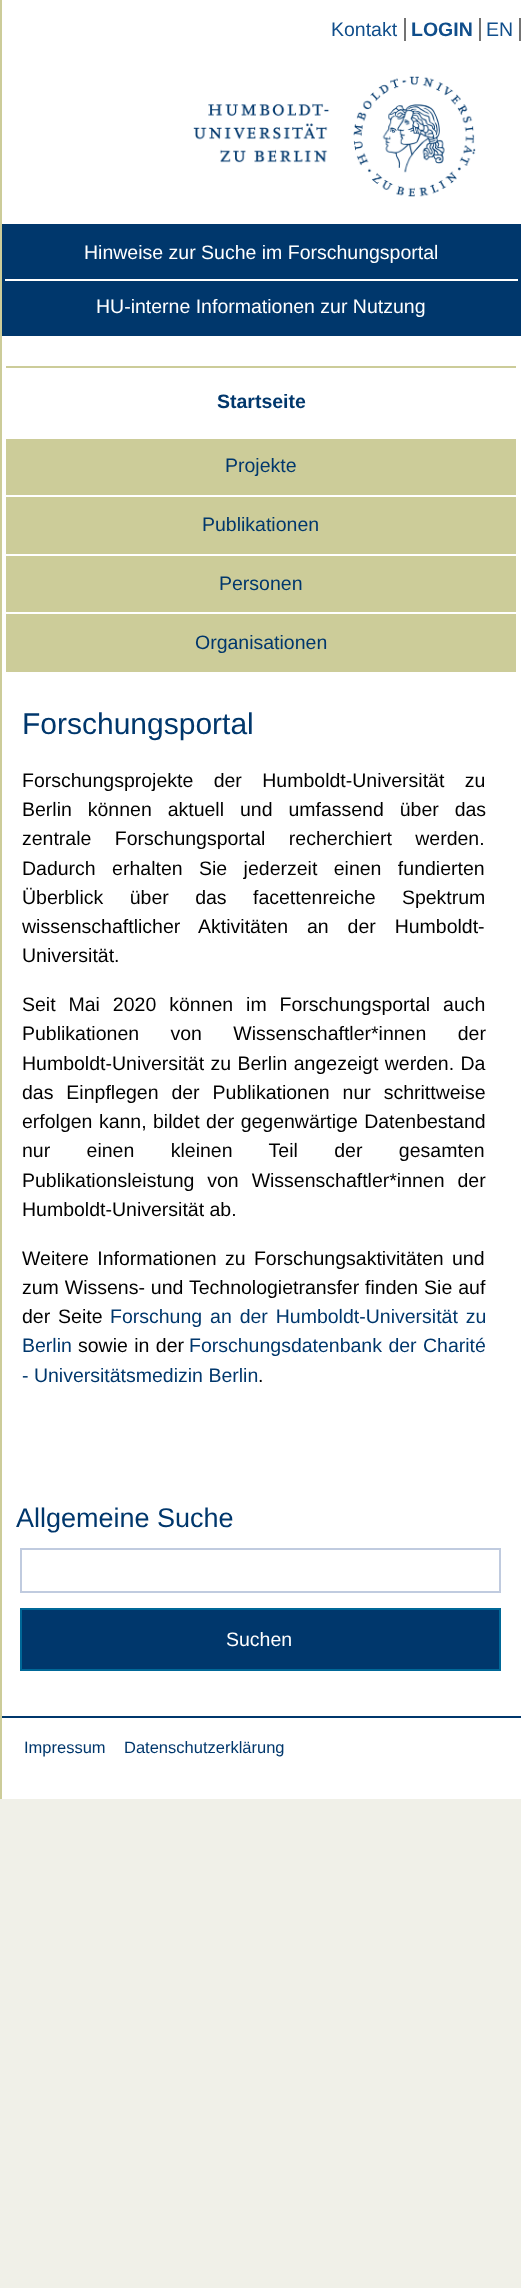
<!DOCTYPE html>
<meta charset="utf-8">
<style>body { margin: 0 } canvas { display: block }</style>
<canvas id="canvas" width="521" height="2288"></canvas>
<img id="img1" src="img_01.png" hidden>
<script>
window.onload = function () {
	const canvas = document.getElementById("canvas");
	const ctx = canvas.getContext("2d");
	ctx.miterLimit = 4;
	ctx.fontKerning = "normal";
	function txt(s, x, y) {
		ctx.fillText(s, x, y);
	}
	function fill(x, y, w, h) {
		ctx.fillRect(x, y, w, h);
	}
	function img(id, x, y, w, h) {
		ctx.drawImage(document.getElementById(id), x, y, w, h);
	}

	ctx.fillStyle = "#F0F0E8";
	fill(0, 0, 521, 2288);
	ctx.fillStyle = "#FFFFFF";
	fill(2, 0, 519, 1799);
	ctx.fillStyle = "#CCCC99";
	fill(0, 0, 2, 1799);
	ctx.fillStyle = "#737373";
	fill(404, 18, 2, 23);
	fill(479, 18, 2, 23);
	fill(519, 18, 2, 23);
	img("img1", 193, 76, 283, 121);
	ctx.fillStyle = "#00376C";
	fill(2, 224, 519, 112);
	ctx.fillStyle = "#FFFFFF";
	fill(5, 279, 513, 2);
	ctx.fillStyle = "#CCCC99";
	fill(6, 366, 510, 2);
	fill(6, 439, 510, 56);
	fill(6, 497, 510, 57);
	fill(6, 556, 510, 56);
	fill(6, 614, 510, 58);
	ctx.strokeStyle = "#C0CBDF";
	ctx.lineWidth = 2;
	ctx.strokeRect(21, 1549, 479, 43);
	ctx.fillStyle = "#00376C";
	ctx.beginPath();
	ctx.rect(21, 1609, 479, 61);
	ctx.fill();
	ctx.strokeStyle = "#006898";
	ctx.stroke();
	fill(2, 1716, 519, 2);
	ctx.font = "19.5px Liberation Sans";
	ctx.fillStyle = "#104E8B";
	txt("Kontakt", 331, 36);
	ctx.font = "bold 19.5px Liberation Sans";
	txt("LOGIN", 411, 36);
	ctx.font = "19.5px Liberation Sans";
	txt("EN", 486, 36);
	ctx.fillStyle = "#FFFFFF";
	txt("Hinweise zur Suche im Forschungsportal", 84, 259);
	txt("HU-interne Informationen zur Nutzung", 96, 313);
	ctx.font = "bold 19.5px Liberation Sans";
	ctx.fillStyle = "#00376C";
	txt("Startseite", 217, 408);
	ctx.font = "19.5px Liberation Sans";
	txt("Projekte", 225, 472);
	txt("Publikationen", 202, 531);
	txt("Personen", 219, 590);
	txt("Organisationen", 195, 649);
	ctx.font = "30px Liberation Sans";
	txt("Forschungsportal", 22, 734);
	ctx.wordSpacing = "15px";
	ctx.font = "19.5px Liberation Sans";
	ctx.fillStyle = "#000000";
	txt("Forschungsprojekte der Humboldt-Universität zu", 22, 787);
	ctx.wordSpacing = "10.5px";
	txt("Berlin können aktuell und umfassend über das", 22, 816);
	ctx.wordSpacing = "18px";
	txt("zentrale Forschungsportal recherchiert werden.", 22, 845);
	ctx.wordSpacing = "11px";
	txt("Dadurch erhalten Sie jederzeit einen fundierten", 22, 875);
	ctx.wordSpacing = "21px";
	txt("Überblick über das facettenreiche Spektrum", 22, 904);
	ctx.wordSpacing = "13.5px";
	txt("wissenschaftlicher Aktivitäten an der Humboldt-", 22, 933);
	ctx.wordSpacing = "0px";
	txt("Universität.", 22, 962);
	ctx.wordSpacing = "7.5px";
	txt("Seit Mai 2020 können im Forschungsportal auch", 22, 1011);
	ctx.wordSpacing = "26px";
	txt("Publikationen von Wissenschaftler*innen der", 22, 1040);
	ctx.wordSpacing = "1px";
	txt("Humboldt-Universität zu Berlin angezeigt werden. Da", 22, 1070);
	ctx.wordSpacing = "7.5px";
	txt("das Einpflegen der Publikationen nur schrittweise", 22, 1099);
	ctx.wordSpacing = "1px";
	txt("erfolgen kann, bildet der gegenwärtige Datenbestand", 22, 1128);
	ctx.wordSpacing = "31px";
	txt("nur einen kleinen Teil der gesamten", 22, 1157);
	ctx.wordSpacing = "7.5px";
	txt("Publikationsleistung von Wissenschaftler*innen der", 22, 1187);
	ctx.wordSpacing = "0px";
	txt("Humboldt-Universität ab.", 22, 1216);
	ctx.wordSpacing = "3px";
	txt("Weitere Informationen zu Forschungsaktivitäten und", 22, 1265);
	ctx.wordSpacing = "0.5px";
	txt("zum Wissens- und Technologietransfer finden Sie auf", 22, 1294);
	ctx.wordSpacing = "2.5px";
	txt("der Seite", 22, 1323);
	ctx.fillStyle = "#00376C";
	txt("Forschung an der Humboldt-Universität zu", 110, 1323);
	ctx.wordSpacing = "0px";
	txt("Berlin", 22, 1352);
	ctx.wordSpacing = "1px";
	ctx.fillStyle = "#000000";
	txt("sowie in der", 78, 1352);
	ctx.fillStyle = "#00376C";
	txt("Forschungsdatenbank der Charité", 189, 1352);
	ctx.wordSpacing = "0px";
	txt("- Universitätsmedizin Berlin", 22, 1382);
	ctx.fillStyle = "#000000";
	txt(".", 258, 1382);
	ctx.font = "27px Liberation Sans";
	ctx.fillStyle = "#00376C";
	txt("Allgemeine Suche", 16, 1527);
	ctx.font = "19.5px Liberation Sans";
	ctx.fillStyle = "#FFFFFF";
	txt("Suchen", 226, 1646);
	ctx.font = "16.5px Liberation Sans";
	ctx.fillStyle = "#00376C";
	txt("Impressum", 24, 1753);
	txt("Datenschutzerklärung", 124, 1753);
};
</script>
